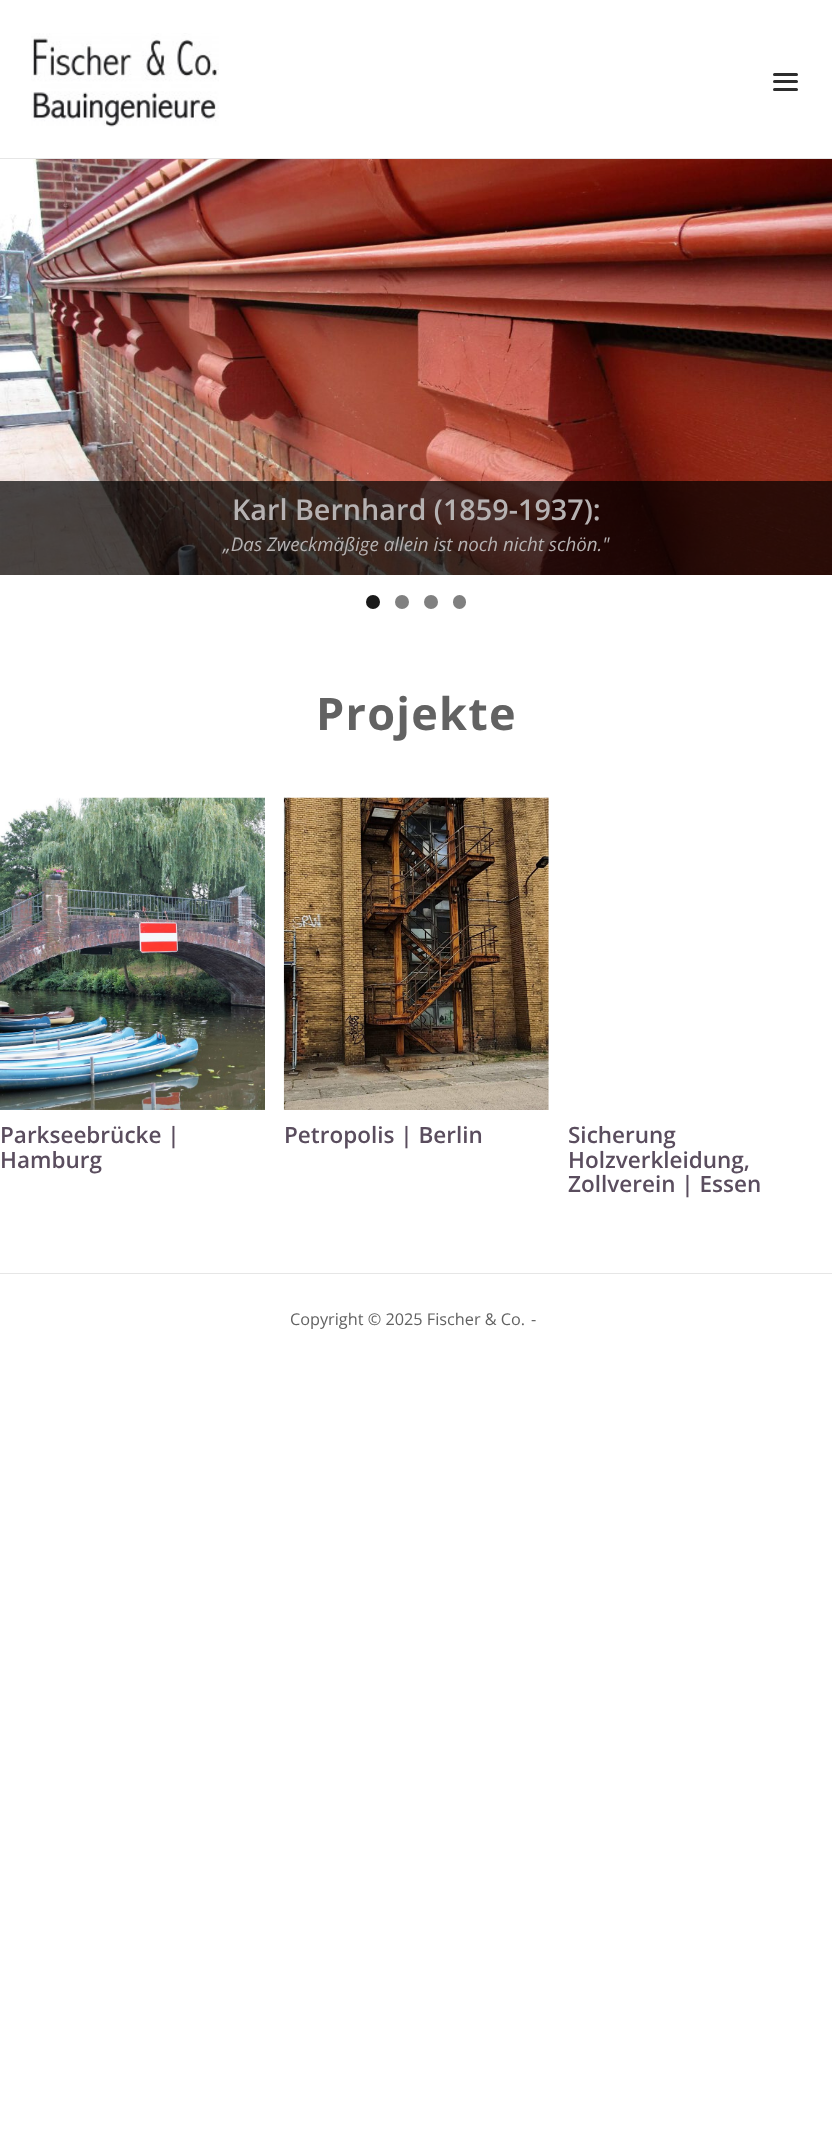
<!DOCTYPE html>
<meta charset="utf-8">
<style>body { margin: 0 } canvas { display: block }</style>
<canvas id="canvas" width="832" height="2156"></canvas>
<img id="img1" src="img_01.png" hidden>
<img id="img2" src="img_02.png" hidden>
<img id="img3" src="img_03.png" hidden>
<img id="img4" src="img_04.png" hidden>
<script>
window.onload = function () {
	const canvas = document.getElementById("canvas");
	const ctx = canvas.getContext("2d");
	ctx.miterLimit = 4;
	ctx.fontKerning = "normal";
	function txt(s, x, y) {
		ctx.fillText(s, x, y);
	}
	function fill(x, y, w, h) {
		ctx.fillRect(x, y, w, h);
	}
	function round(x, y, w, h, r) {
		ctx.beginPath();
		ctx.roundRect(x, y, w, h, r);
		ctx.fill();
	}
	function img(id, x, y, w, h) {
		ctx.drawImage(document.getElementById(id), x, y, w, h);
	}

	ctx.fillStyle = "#FFFFFF";
	fill(0, 0, 832, 2156);
	ctx.fillStyle = "#E6E6E6";
	fill(0, 158, 832, 1);
	img("img1", 31, 33, 188, 94);
	ctx.fillStyle = "#2D2D2D";
	round(773, 73, 25, 3, 1.5);
	round(773, 80, 25, 3, 1.5);
	round(773, 88, 25, 3, 1.5);
	img("img2", 0, 159, 832, 416);
	ctx.fillStyle = "rgba(0, 0, 0, 0.7)";
	fill(0, 481, 832, 94);
	ctx.fillStyle = "#1A1A1A";
	ctx.beginPath();
	ctx.arc(373, 602, 7, 0, Math.PI * 2);
	ctx.fill();
	ctx.fillStyle = "#808080";
	ctx.beginPath();
	ctx.arc(402, 602, 7, 0, Math.PI * 2);
	ctx.fill();
	ctx.beginPath();
	ctx.arc(431, 602, 7, 0, Math.PI * 2);
	ctx.fill();
	round(453, 595, 13, 14, 6.5);
	img("img3", 0, 797, 265, 313);
	img("img4", 283, 797, 266, 313);
	ctx.fillStyle = "#E6E6E6";
	fill(0, 1273, 832, 1);
	ctx.font = "600 28.75px Open Sans";
	ctx.fillStyle = "#B6B2B2";
	txt("Karl Bernhard (1859-1937):", 232, 520);
	ctx.font = "italic 18.75px Open Sans";
	txt("„Das Zweckmäßige allein ist noch nicht schön.\"", 223, 551);
	ctx.letterSpacing = "1.25px";
	ctx.font = "bold 45px Open Sans";
	ctx.fillStyle = "#626262";
	txt("Projekte", 316, 730);
	ctx.letterSpacing = "0px";
	ctx.font = "600 22.5px Open Sans";
	ctx.fillStyle = "#5A4D5E";
	txt("Parkseebrücke |", 0, 1143);
	txt("Hamburg", 0, 1168);
	txt("Petropolis | Berlin", 284, 1143);
	txt("Sicherung", 568, 1143);
	txt("Holzverkleidung,", 568, 1168);
	txt("Zollverein | Essen", 568, 1192);
	ctx.font = "16.25px Open Sans";
	ctx.fillStyle = "#626262";
	txt("Copyright © 2025 Fischer & Co.", 290, 1325);
	txt("-", 531, 1325);
};
</script>
